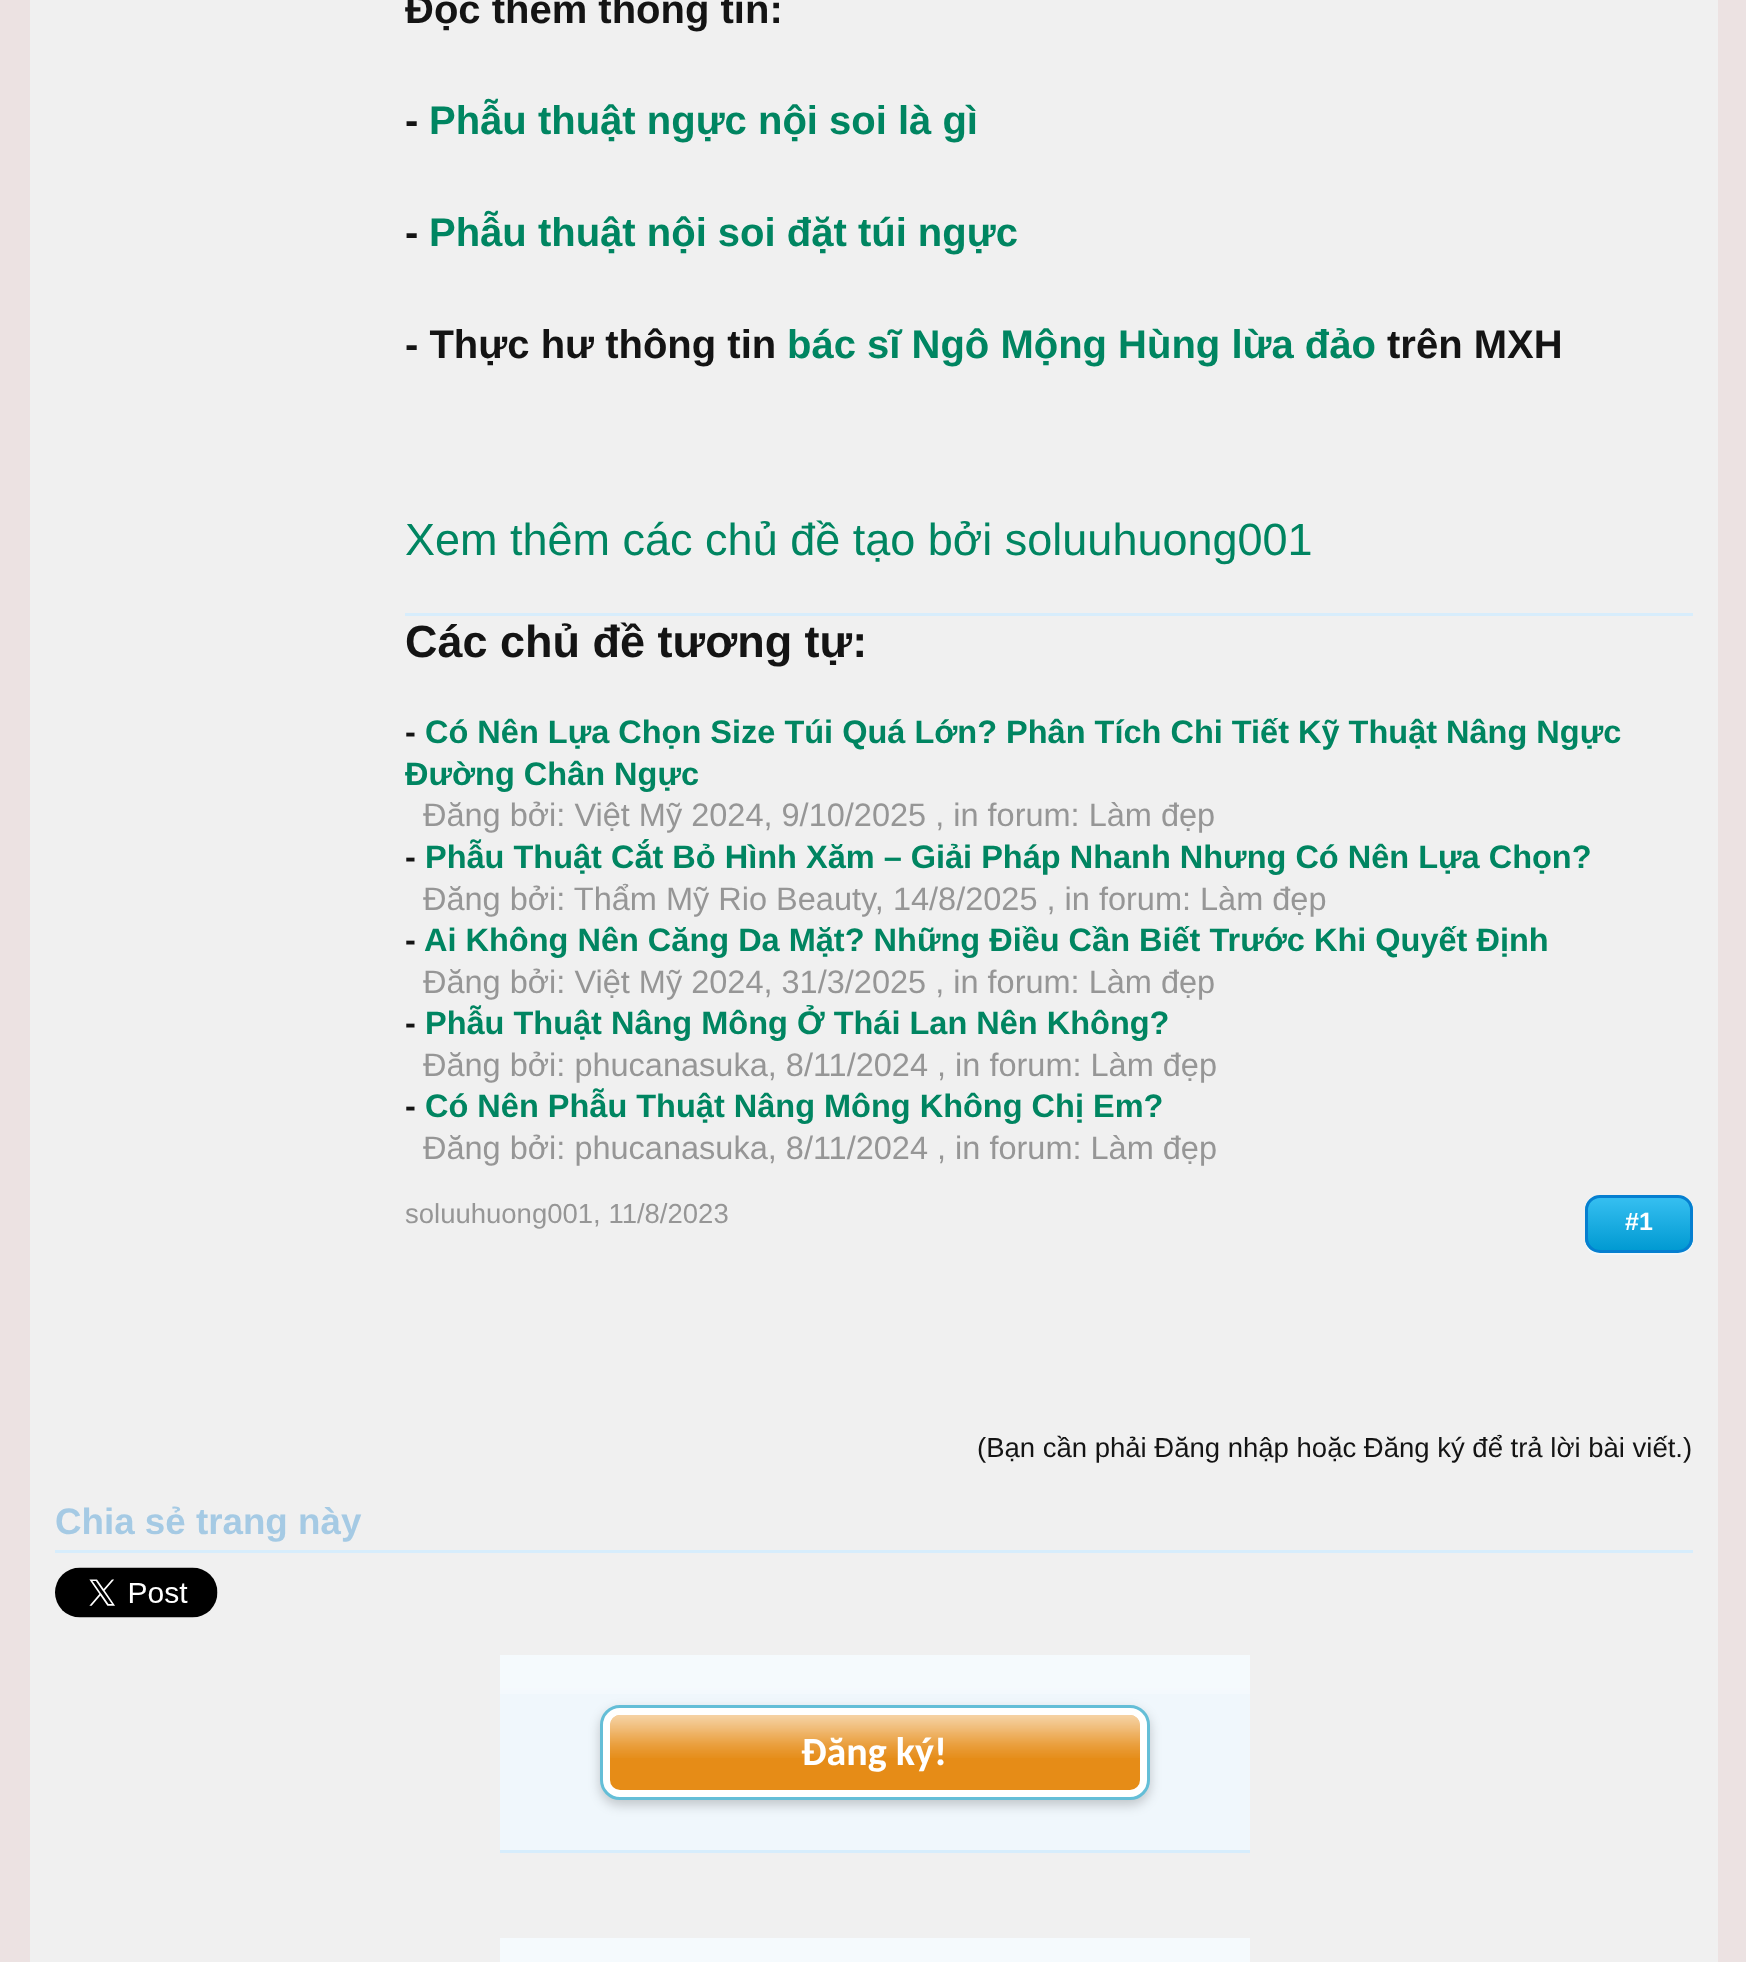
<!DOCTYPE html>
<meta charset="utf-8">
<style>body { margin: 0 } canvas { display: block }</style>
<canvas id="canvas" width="1746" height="1962"></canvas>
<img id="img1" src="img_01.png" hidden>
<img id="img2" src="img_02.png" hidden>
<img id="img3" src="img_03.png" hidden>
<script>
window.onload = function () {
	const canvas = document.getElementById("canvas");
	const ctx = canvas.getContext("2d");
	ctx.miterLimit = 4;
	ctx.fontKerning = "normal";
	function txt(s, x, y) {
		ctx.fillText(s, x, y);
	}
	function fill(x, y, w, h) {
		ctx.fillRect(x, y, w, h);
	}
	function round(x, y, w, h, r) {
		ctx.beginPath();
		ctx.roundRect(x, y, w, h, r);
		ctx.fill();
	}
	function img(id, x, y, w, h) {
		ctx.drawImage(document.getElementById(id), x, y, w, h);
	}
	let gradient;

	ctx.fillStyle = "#ECE2E2";
	fill(0, 0, 1746, 1962);
	ctx.fillStyle = "#F0F0F0";
	fill(30, 0, 1688, 1962);
	ctx.fillStyle = "#D7EDFC";
	fill(405, 613, 1288, 3);
	ctx.fillStyle = "#F0F7FA";
	ctx.beginPath();
	ctx.moveTo(1585, 1238);
	ctx.bezierCurveTo(1585, 1257, 1598, 1255, 1613, 1255);
	ctx.lineTo(1665, 1255);
	ctx.bezierCurveTo(1676, 1255, 1690, 1257, 1693, 1243);
	ctx.lineTo(1693, 1218);
	ctx.lineTo(1692, 1209);
	ctx.lineTo(1692, 1238);
	ctx.bezierCurveTo(1692, 1246, 1686, 1252, 1678, 1252);
	ctx.lineTo(1600, 1252);
	ctx.bezierCurveTo(1592, 1252, 1585, 1246, 1585, 1238);
	ctx.closePath();
	ctx.fill();
	ctx.save();
	ctx.beginPath();
	ctx.roundRect(1585, 1195, 108, 58, 15);
	ctx.clip();
	gradient = ctx.createLinearGradient(1639, 1198, 1639, 1250);
	gradient.addColorStop(0.05, "#33BDEF");
	gradient.addColorStop(1, "#019AD2");
	ctx.fillStyle = gradient;
	fill(1585, 1198, 108, 52);
	ctx.restore();
	ctx.beginPath();
	ctx.roundRect(1586.5, 1196.5, 105, 55, 13.5);
	ctx.strokeStyle = "#057FD0";
	ctx.lineWidth = 3;
	ctx.stroke();
	ctx.fillStyle = "#D7EDFC";
	fill(55, 1550, 1638, 3);
	img("img1", 55, 1567, 163, 51);
	ctx.fillStyle = "#F0F7FC";
	fill(500, 1655, 750, 195);
	img("img2", 500, 1655, 750, 39);
	ctx.fillStyle = "#D7EDFC";
	fill(500, 1850, 750, 3);
	ctx.fillStyle = "rgba(0, 0, 0, 0.2)";
	ctx.filter = "blur(6px)";
	ctx.beginPath();
	ctx.roundRect(600, 1710, 550, 95, 20);
	ctx.fill();
	ctx.filter = "none";
	ctx.fillStyle = "#FFFFFF";
	ctx.beginPath();
	ctx.roundRect(601.5, 1706.5, 547, 92, 18.5);
	ctx.fill();
	ctx.strokeStyle = "#64BED7";
	ctx.stroke();
	ctx.fillStyle = "#E68C17";
	round(610, 1715, 530, 75, 10);
	img("img3", 610, 1715, 530, 43);
	ctx.fillStyle = "#F5FAFD";
	fill(500, 1938, 750, 24);
	ctx.font = "bold 40px Liberation Sans";
	ctx.fillStyle = "#141414";
	txt("Đọc thêm thông tin:", 405, 23);
	txt("-", 405, 134);
	ctx.fillStyle = "#008561";
	txt("Phẫu thuật ngực nội soi là gì", 429, 134);
	ctx.fillStyle = "#141414";
	txt("-", 405, 246);
	ctx.fillStyle = "#008561";
	txt("Phẫu thuật nội soi đặt túi ngực", 429, 246);
	ctx.fillStyle = "#141414";
	txt("- Thực hư thông tin", 405, 358);
	ctx.fillStyle = "#008561";
	txt("bác sĩ Ngô Mộng Hùng lừa đảo", 787, 358);
	ctx.fillStyle = "#141414";
	txt("trên MXH", 1387, 358);
	ctx.font = "45px Liberation Sans";
	ctx.fillStyle = "#008561";
	txt("Xem thêm các chủ đề tạo bởi soluuhuong001", 405, 555);
	ctx.font = "bold 45px Liberation Sans";
	ctx.fillStyle = "#141414";
	txt("Các chủ đề tương tự:", 405, 657);
	ctx.font = "bold 32.5px Liberation Sans";
	txt("-", 405, 743);
	ctx.fillStyle = "#008561";
	txt("Có Nên Lựa Chọn Size Túi Quá Lớn? Phân Tích Chi Tiết Kỹ Thuật Nâng Ngực", 425, 743);
	txt("Đường Chân Ngực", 405, 785);
	ctx.font = "32.5px Liberation Sans";
	ctx.fillStyle = "#969696";
	txt("Đăng bởi: Việt Mỹ 2024, 9/10/2025 , in forum: Làm đẹp", 423, 826);
	ctx.font = "bold 32.5px Liberation Sans";
	ctx.fillStyle = "#141414";
	txt("-", 405, 868);
	ctx.fillStyle = "#008561";
	txt("Phẫu Thuật Cắt Bỏ Hình Xăm – Giải Pháp Nhanh Nhưng Có Nên Lựa Chọn?", 425, 868);
	ctx.font = "32.5px Liberation Sans";
	ctx.fillStyle = "#969696";
	txt("Đăng bởi: Thẩm Mỹ Rio Beauty, 14/8/2025 , in forum: Làm đẹp", 423, 910);
	ctx.font = "bold 32.5px Liberation Sans";
	ctx.fillStyle = "#141414";
	txt("-", 405, 951);
	ctx.fillStyle = "#008561";
	txt("Ai Không Nên Căng Da Mặt? Những Điều Cần Biết Trước Khi Quyết Định", 424, 951);
	ctx.font = "32.5px Liberation Sans";
	ctx.fillStyle = "#969696";
	txt("Đăng bởi: Việt Mỹ 2024, 31/3/2025 , in forum: Làm đẹp", 423, 993);
	ctx.font = "bold 32.5px Liberation Sans";
	ctx.fillStyle = "#141414";
	txt("-", 405, 1034);
	ctx.fillStyle = "#008561";
	txt("Phẫu Thuật Nâng Mông Ở Thái Lan Nên Không?", 425, 1034);
	ctx.font = "32.5px Liberation Sans";
	ctx.fillStyle = "#969696";
	txt("Đăng bởi: phucanasuka, 8/11/2024 , in forum: Làm đẹp", 423, 1076);
	ctx.font = "bold 32.5px Liberation Sans";
	ctx.fillStyle = "#141414";
	txt("-", 405, 1117);
	ctx.fillStyle = "#008561";
	txt("Có Nên Phẫu Thuật Nâng Mông Không Chị Em?", 425, 1117);
	ctx.font = "32.5px Liberation Sans";
	ctx.fillStyle = "#969696";
	txt("Đăng bởi: phucanasuka, 8/11/2024 , in forum: Làm đẹp", 423, 1159);
	ctx.font = "27.5px Liberation Sans";
	txt("soluuhuong001, 11/8/2023", 405, 1223);
	ctx.font = "bold 25px Liberation Sans";
	ctx.fillStyle = "#FFFFFF";
	txt("#1", 1625, 1230);
	ctx.font = "27.5px Liberation Sans";
	ctx.fillStyle = "#141414";
	txt("(Bạn cần phải Đăng nhập hoặc Đăng ký để trả lời bài viết.)", 977, 1457);
	ctx.font = "bold 36.75px Liberation Sans";
	ctx.fillStyle = "#A5CAE4";
	txt("Chia sẻ trang này", 55, 1534);
	ctx.font = "bold 40px Carlito";
	ctx.fillStyle = "#FFFFFF";
	txt("Đăng ký!", 801, 1765);
};
</script>
